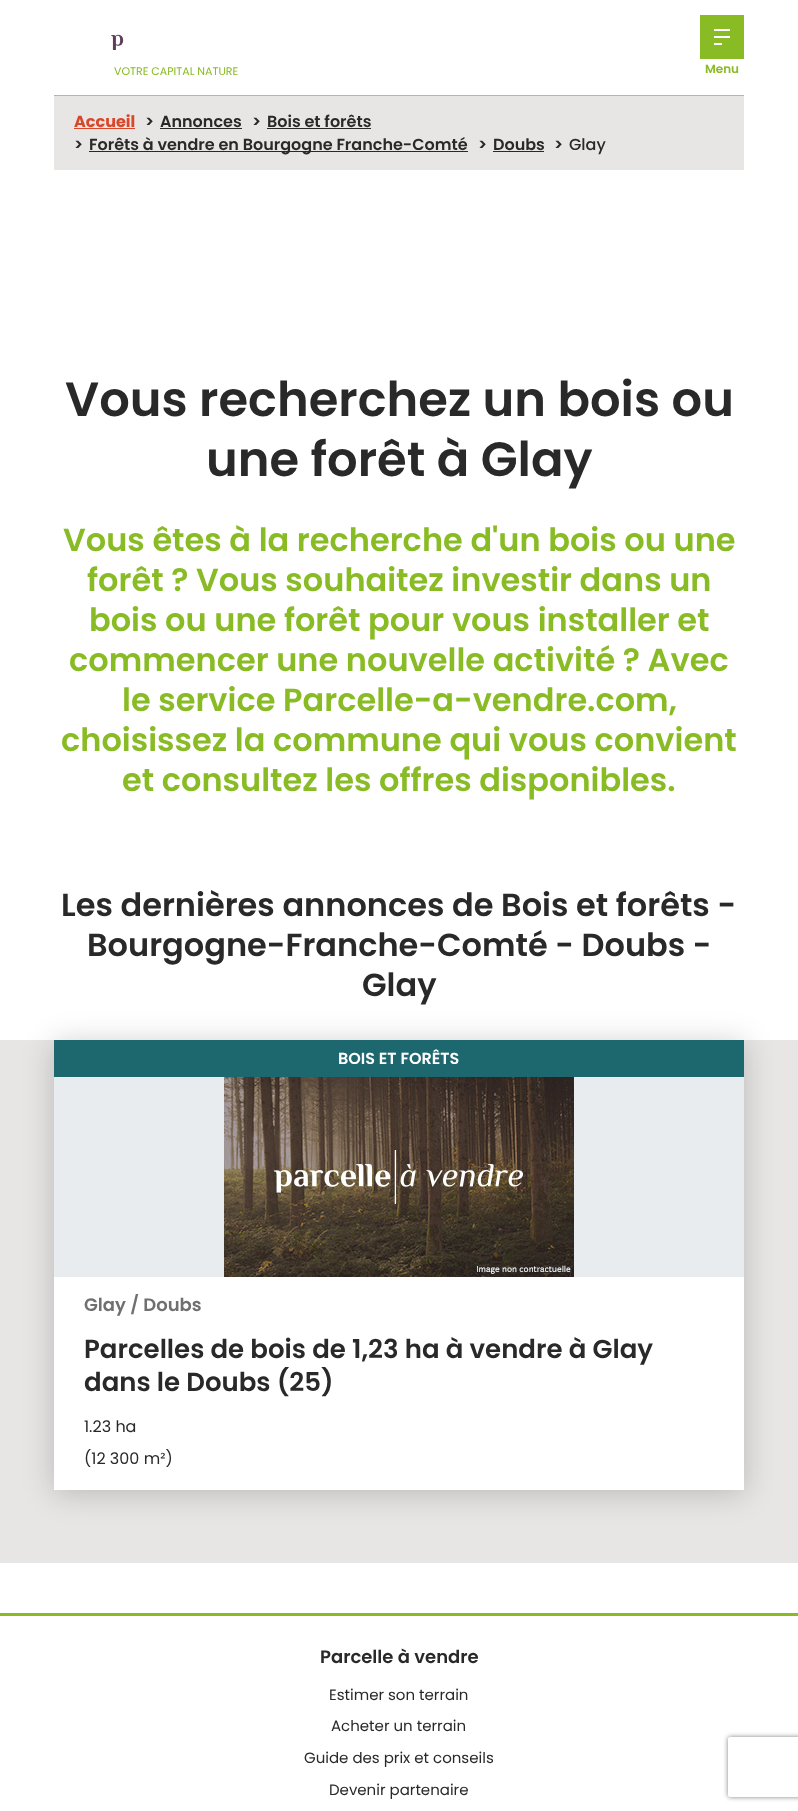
<!DOCTYPE html>
<meta charset="utf-8">
<style>body { margin: 0 } canvas { display: block }</style>
<canvas id="canvas" width="798" height="1811"></canvas>
<img id="img1" src="img_01.png" hidden>
<img id="img2" src="img_02.png" hidden>
<script>
window.onload = function () {
	const canvas = document.getElementById("canvas");
	const ctx = canvas.getContext("2d");
	ctx.miterLimit = 4;
	ctx.fontKerning = "normal";
	function txt(s, x, y) {
		ctx.fillText(s, x, y);
	}
	function fill(x, y, w, h) {
		ctx.fillRect(x, y, w, h);
	}
	function img(id, x, y, w, h) {
		ctx.drawImage(document.getElementById(id), x, y, w, h);
	}

	ctx.fillStyle = "#FFFFFF";
	fill(0, 0, 798, 1811);
	ctx.fillStyle = "#B4B4B4";
	fill(54, 95, 690, 1);
	img("img1", 111, 34, 13, 16);
	ctx.fillStyle = "#89BB25";
	fill(700, 15, 44, 44);
	ctx.fillStyle = "#FFFFFF";
	fill(714, 29, 16, 2);
	fill(714, 36, 16, 2);
	fill(714, 43, 8, 2);
	ctx.fillStyle = "#E8E5E5";
	fill(54, 96, 690, 74);
	ctx.fillStyle = "#D8472A";
	fill(74, 128, 61, 1);
	ctx.fillStyle = "#292929";
	fill(160, 128, 82, 1);
	fill(267, 128, 104, 1);
	fill(89, 151, 379, 1);
	fill(493, 151, 51, 1);
	ctx.fillStyle = "#E8E5E5";
	fill(0, 1040, 798, 523);
	ctx.fillStyle = "rgba(0, 0, 0, 0.2)";
	ctx.filter = "blur(15px)";
	ctx.beginPath();
	ctx.rect(54, 1043, 690, 450);
	ctx.fill();
	ctx.filter = "none";
	ctx.fillStyle = "#FFFFFF";
	fill(54, 1277, 690, 213);
	ctx.fillStyle = "#1C686E";
	fill(54, 1040, 690, 37);
	ctx.fillStyle = "#E9ECEF";
	fill(54, 1077, 690, 200);
	img("img2", 224, 1077, 350, 200);
	ctx.fillStyle = "#89BB25";
	fill(0, 1613, 798, 3);
	ctx.save();
	ctx.beginPath();
	ctx.moveTo(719, 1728);
	ctx.lineTo(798, 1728);
	ctx.lineTo(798, 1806);
	ctx.lineTo(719, 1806);
	ctx.closePath();
	ctx.moveTo(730, 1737);
	ctx.lineTo(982, 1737);
	ctx.bezierCurveTo(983, 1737, 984, 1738, 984, 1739);
	ctx.lineTo(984, 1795);
	ctx.bezierCurveTo(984, 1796, 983, 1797, 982, 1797);
	ctx.lineTo(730, 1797);
	ctx.bezierCurveTo(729, 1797, 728, 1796, 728, 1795);
	ctx.lineTo(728, 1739);
	ctx.bezierCurveTo(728, 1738, 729, 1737, 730, 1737);
	ctx.closePath();
	ctx.clip("evenodd");
	ctx.fillStyle = "#808080";
	ctx.filter = "blur(2.5px)";
	ctx.beginPath();
	ctx.roundRect(728, 1737, 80, 60, 2);
	ctx.fill();
	ctx.filter = "none";
	ctx.restore();
	ctx.font = "11px Poppins";
	txt("VOTRE CAPITAL NATURE", 114, 75);
	ctx.font = "600 12px Poppins";
	txt("Menu", 705, 73);
	ctx.font = "bold 16px Poppins";
	ctx.fillStyle = "#D8472A";
	txt("Accueil", 74, 127);
	ctx.font = "600 16px Poppins";
	ctx.fillStyle = "#292929";
	txt(">", 145, 127);
	txt("Annonces", 160, 127);
	txt(">", 252, 127);
	txt("Bois et forêts", 267, 127);
	txt(">", 74, 150);
	txt("Forêts à vendre en Bourgogne Franche-Comté", 89, 150);
	txt(">", 478, 150);
	txt("Doubs", 493, 150);
	txt(">", 554, 150);
	ctx.font = "500 16px Poppins";
	txt("Glay", 569, 150);
	ctx.font = "600 48px Poppins";
	txt("Vous recherchez un bois ou", 65, 416);
	txt("une forêt à Glay", 206, 476);
	ctx.font = "600 32px Poppins";
	ctx.fillStyle = "#89BB25";
	txt("Vous êtes à la recherche d'un bois ou une", 63, 551);
	txt("forêt ? Vous souhaitez investir dans un", 87, 591);
	txt("bois ou une forêt pour vous installer et", 89, 631);
	txt("commencer une nouvelle activité ? Avec", 69, 671);
	txt("le service Parcelle-a-vendre.com,", 122, 711);
	txt("choisissez la commune qui vous convient", 61, 751);
	txt("et consultez les offres disponibles.", 122, 791);
	ctx.fillStyle = "#292929";
	txt("Les dernières annonces de Bois et forêts -", 61, 916);
	txt("Bourgogne-Franche-Comté - Doubs -", 87, 956);
	txt("Glay", 362, 996);
	ctx.font = "600 16px Poppins";
	ctx.fillStyle = "#FFFFFF";
	txt("BOIS ET FORÊTS", 338, 1064);
	ctx.font = "600 18px Poppins";
	ctx.fillStyle = "#707070";
	txt("Glay / Doubs", 84, 1311);
	ctx.font = "600 26px Poppins";
	ctx.fillStyle = "#292929";
	txt("Parcelles de bois de 1,23 ha à vendre à Glay", 84, 1358);
	txt("dans le Doubs (25)", 84, 1391);
	ctx.font = "16px Poppins";
	txt("1.23 ha", 84, 1432);
	txt("(12 300 m²)", 84, 1464);
	ctx.font = "600 18px Poppins";
	txt("Parcelle à vendre", 320, 1663);
	ctx.font = "15px Poppins";
	txt("Estimer son terrain", 329, 1700);
	txt("Acheter un terrain", 331, 1731);
	txt("Guide des prix et conseils", 304, 1763);
	txt("Devenir partenaire", 329, 1795);
};
</script>
